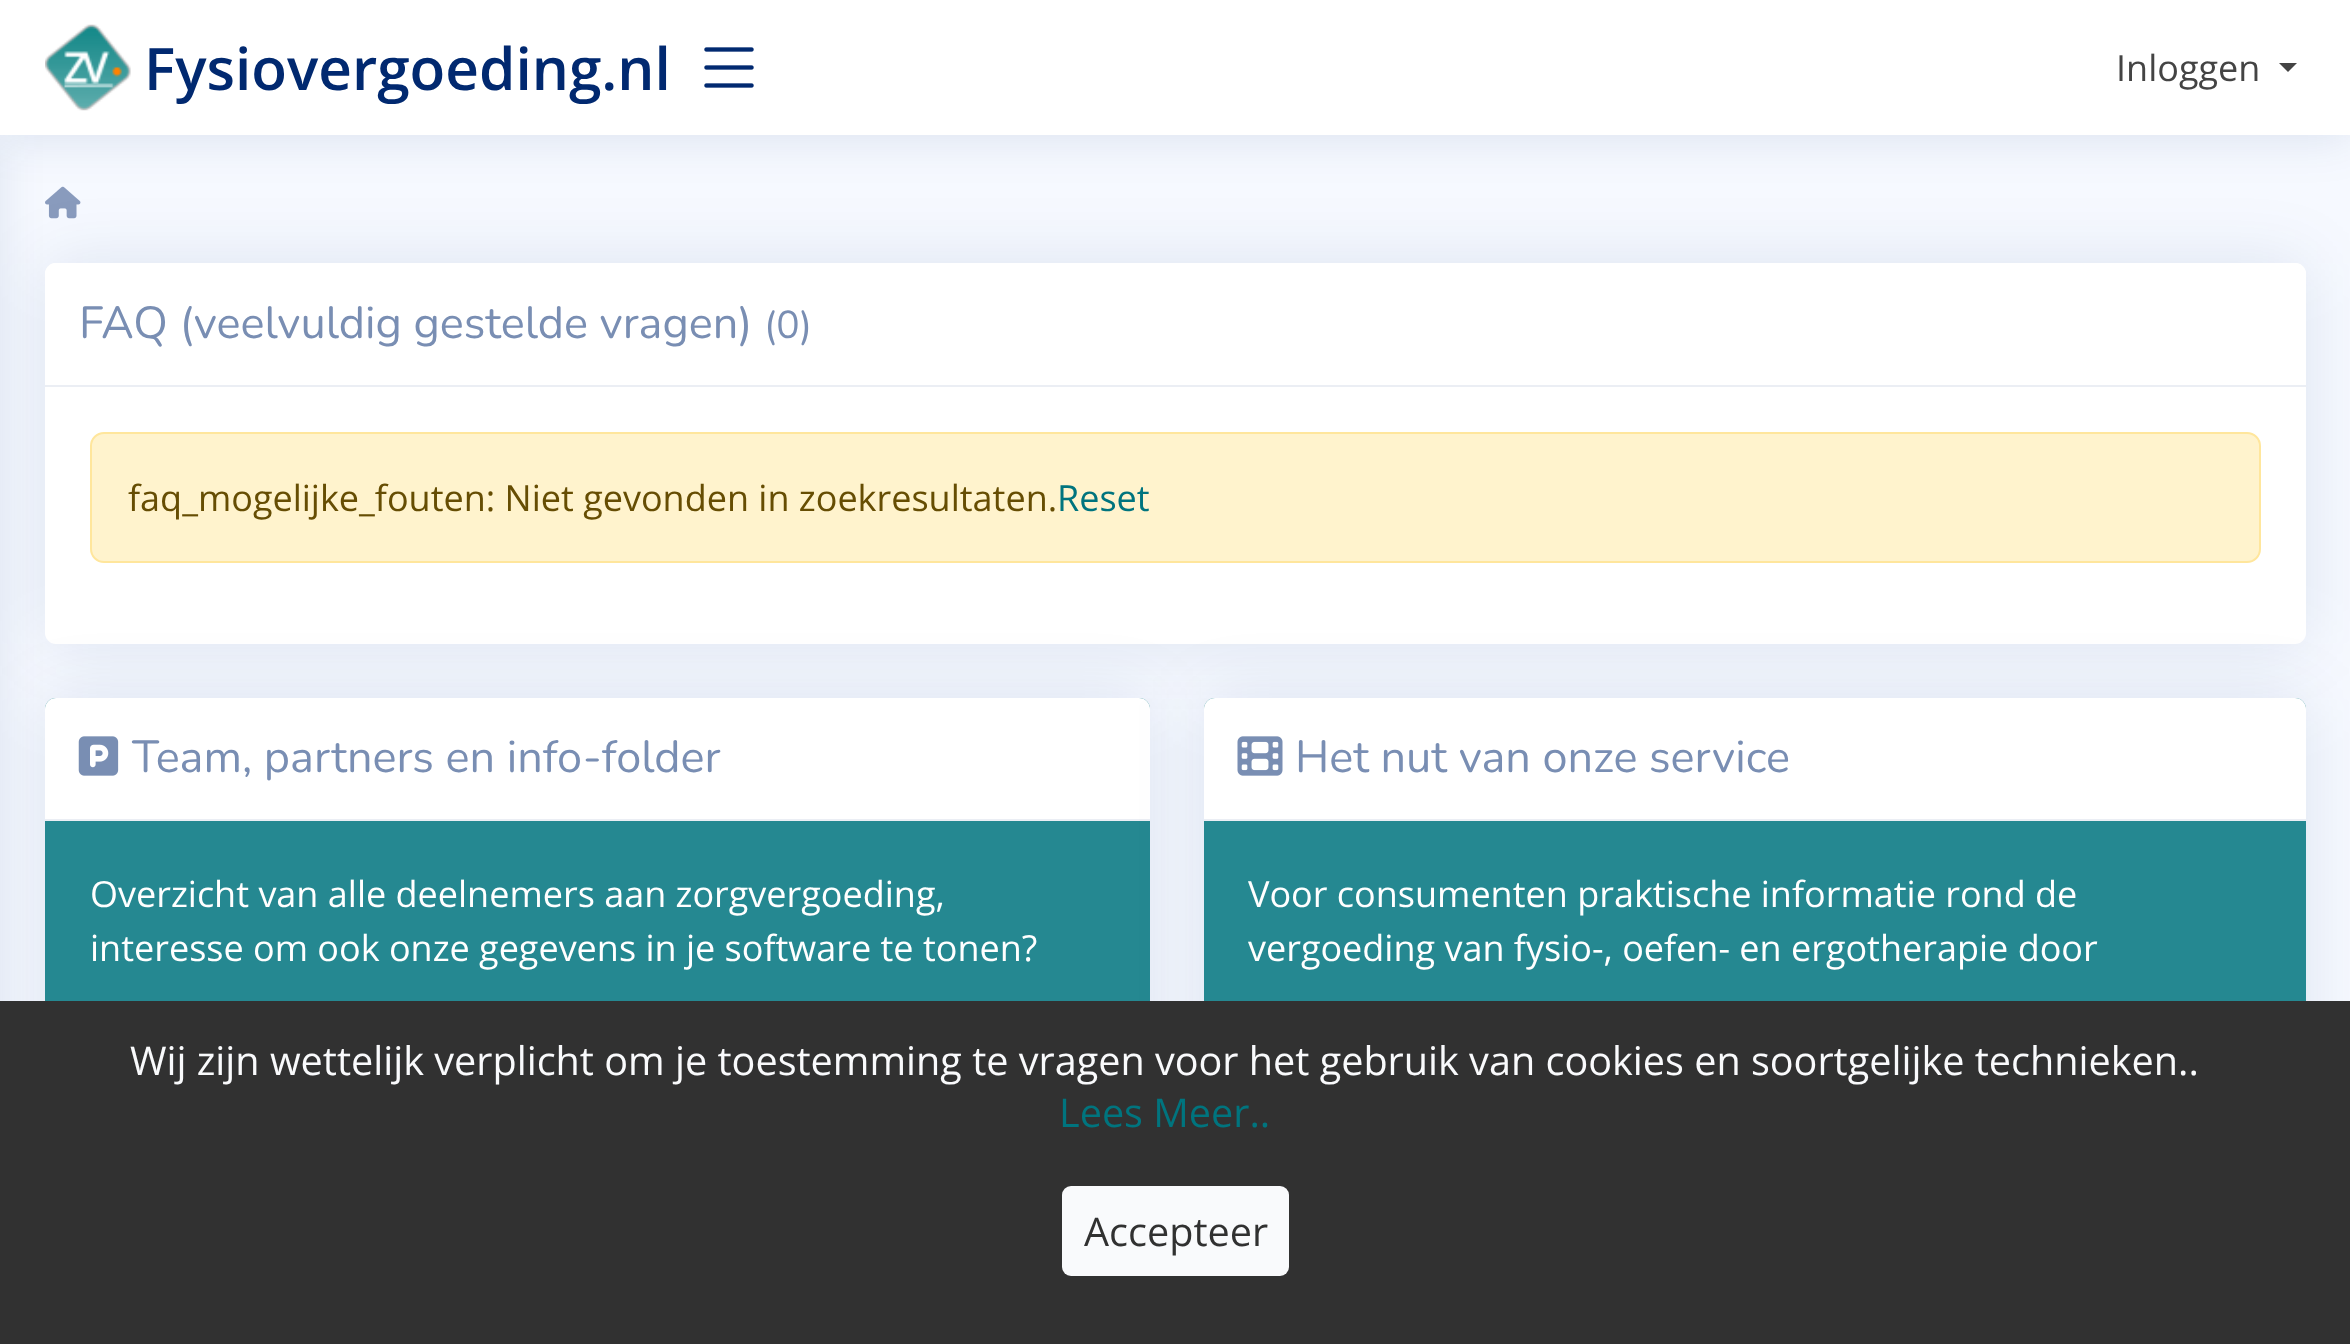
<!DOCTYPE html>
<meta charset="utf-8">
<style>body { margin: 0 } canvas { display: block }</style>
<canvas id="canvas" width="2350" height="1344"></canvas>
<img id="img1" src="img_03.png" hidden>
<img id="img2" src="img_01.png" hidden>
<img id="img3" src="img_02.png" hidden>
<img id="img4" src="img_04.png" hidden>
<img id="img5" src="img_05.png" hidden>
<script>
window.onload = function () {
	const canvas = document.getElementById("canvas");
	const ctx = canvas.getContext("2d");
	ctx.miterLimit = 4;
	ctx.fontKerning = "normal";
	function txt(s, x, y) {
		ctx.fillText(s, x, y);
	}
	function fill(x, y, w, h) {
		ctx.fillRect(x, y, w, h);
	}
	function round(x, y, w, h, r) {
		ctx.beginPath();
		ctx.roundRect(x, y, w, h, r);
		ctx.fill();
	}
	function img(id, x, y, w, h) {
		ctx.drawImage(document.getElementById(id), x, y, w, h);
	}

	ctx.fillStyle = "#F6F9FF";
	fill(0, 0, 2350, 1344);
	img("img1", 45, 186, 36, 33);
	ctx.fillStyle = "rgba(1, 41, 112, 0.1)";
	ctx.filter = "blur(34px)";
	ctx.beginPath();
	ctx.roundRect(45, 263, 2261, 381, 11);
	ctx.fill();
	ctx.filter = "none";
	ctx.fillStyle = "#FFFFFF";
	round(45, 263, 2261, 381, 11);
	ctx.beginPath();
	ctx.roundRect(45, 263, 2261, 124, [11, 11, 0, 0]);
	ctx.fill();
	ctx.fillStyle = "#EBEEF4";
	fill(45, 385, 2261, 2);
	ctx.fillStyle = "rgba(1, 41, 112, 0.1)";
	ctx.filter = "blur(34px)";
	ctx.beginPath();
	ctx.roundRect(45, 698, 1105, 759, 11);
	ctx.fill();
	ctx.filter = "none";
	ctx.fillStyle = "#258891";
	round(45, 698, 1105, 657, 11);
	ctx.fillStyle = "#FFFFFF";
	ctx.beginPath();
	ctx.roundRect(45, 698, 1105, 123, [11, 11, 0, 0]);
	ctx.fill();
	ctx.fillStyle = "#EBEEF4";
	fill(45, 819, 1105, 2);
	ctx.fillStyle = "rgba(1, 41, 112, 0.1)";
	ctx.filter = "blur(22.5px)";
	ctx.beginPath();
	ctx.rect(-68, 135, 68, 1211);
	ctx.fill();
	ctx.filter = "none";
	ctx.filter = "blur(22.5px)";
	ctx.beginPath();
	ctx.rect(0, 5, 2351, 135);
	ctx.fill();
	ctx.filter = "none";
	ctx.fillStyle = "#FFFFFF";
	fill(0, 0, 2350, 135);
	img("img2", 45, 24, 86, 87);
	img("img3", 704, 47, 50, 41);
	ctx.fillStyle = "#444444";
	ctx.beginPath();
	ctx.moveTo(2279, 63);
	ctx.lineTo(2297, 63);
	ctx.lineTo(2288, 72);
	ctx.closePath();
	ctx.fill();
	ctx.fillStyle = "#FFF3CD";
	ctx.beginPath();
	ctx.roundRect(91, 433, 2169, 129, 13);
	ctx.fill();
	ctx.strokeStyle = "#FFE69C";
	ctx.lineWidth = 2;
	ctx.stroke();
	img("img4", 78, 736, 41, 40);
	ctx.fillStyle = "rgba(1, 41, 112, 0.1)";
	ctx.filter = "blur(34px)";
	ctx.beginPath();
	ctx.roundRect(1204, 698, 1102, 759, 11);
	ctx.fill();
	ctx.filter = "none";
	ctx.fillStyle = "#258891";
	round(1204, 698, 1102, 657, 11);
	ctx.fillStyle = "#FFFFFF";
	ctx.beginPath();
	ctx.roundRect(1204, 698, 1102, 123, [11, 11, 0, 0]);
	ctx.fill();
	ctx.fillStyle = "#EBEEF4";
	fill(1204, 819, 1102, 2);
	img("img5", 1237, 736, 46, 40);
	ctx.fillStyle = "#313131";
	fill(0, 1001, 2350, 343);
	ctx.fillStyle = "#F9FAFC";
	round(1062, 1186, 227, 90, 9);
	ctx.font = "600 58.5px Open Sans";
	ctx.fillStyle = "#012970";
	txt("Fysiovergoeding.nl", 144, 90);
	ctx.font = "36px Open Sans";
	ctx.fillStyle = "#444444";
	txt("Inloggen", 2116, 81);
	ctx.font = "45px Nunito";
	ctx.fillStyle = "#798EB3";
	txt("FAQ (veelvuldig gestelde vragen)", 79, 338);
	ctx.font = "39px Nunito";
	txt("(0)", 764, 338);
	ctx.font = "36px Open Sans";
	ctx.fillStyle = "#664D03";
	txt("faq_mogelijke_fouten: Niet gevonden in zoekresultaten.", 128, 511);
	ctx.fillStyle = "#00747E";
	txt("Reset", 1057, 511);
	ctx.font = "45px Nunito";
	ctx.fillStyle = "#798EB3";
	txt("Team, partners en info-folder", 132, 772);
	ctx.font = "36px Open Sans";
	ctx.fillStyle = "#FFFFFF";
	txt("Overzicht van alle deelnemers aan zorgvergoeding,", 90, 907);
	txt("interesse om ook onze gegevens in je software te tonen?", 90, 961);
	ctx.font = "45px Nunito";
	ctx.fillStyle = "#798EB3";
	txt("Het nut van onze service", 1295, 772);
	ctx.font = "36px Open Sans";
	ctx.fillStyle = "#FFFFFF";
	txt("Voor consumenten praktische informatie rond de", 1248, 907);
	txt("vergoeding van fysio-, oefen- en ergotherapie door", 1248, 961);
	ctx.font = "39.6px Open Sans";
	ctx.fillStyle = "#F9FAFC";
	txt("Wij zijn wettelijk verplicht om je toestemming te vragen voor het gebruik van cookies en soortgelijke technieken..", 130, 1075);
	ctx.fillStyle = "#00747E";
	txt("Lees Meer..", 1059, 1127);
	ctx.fillStyle = "#313131";
	txt("Accepteer", 1084, 1246);
};
</script>
